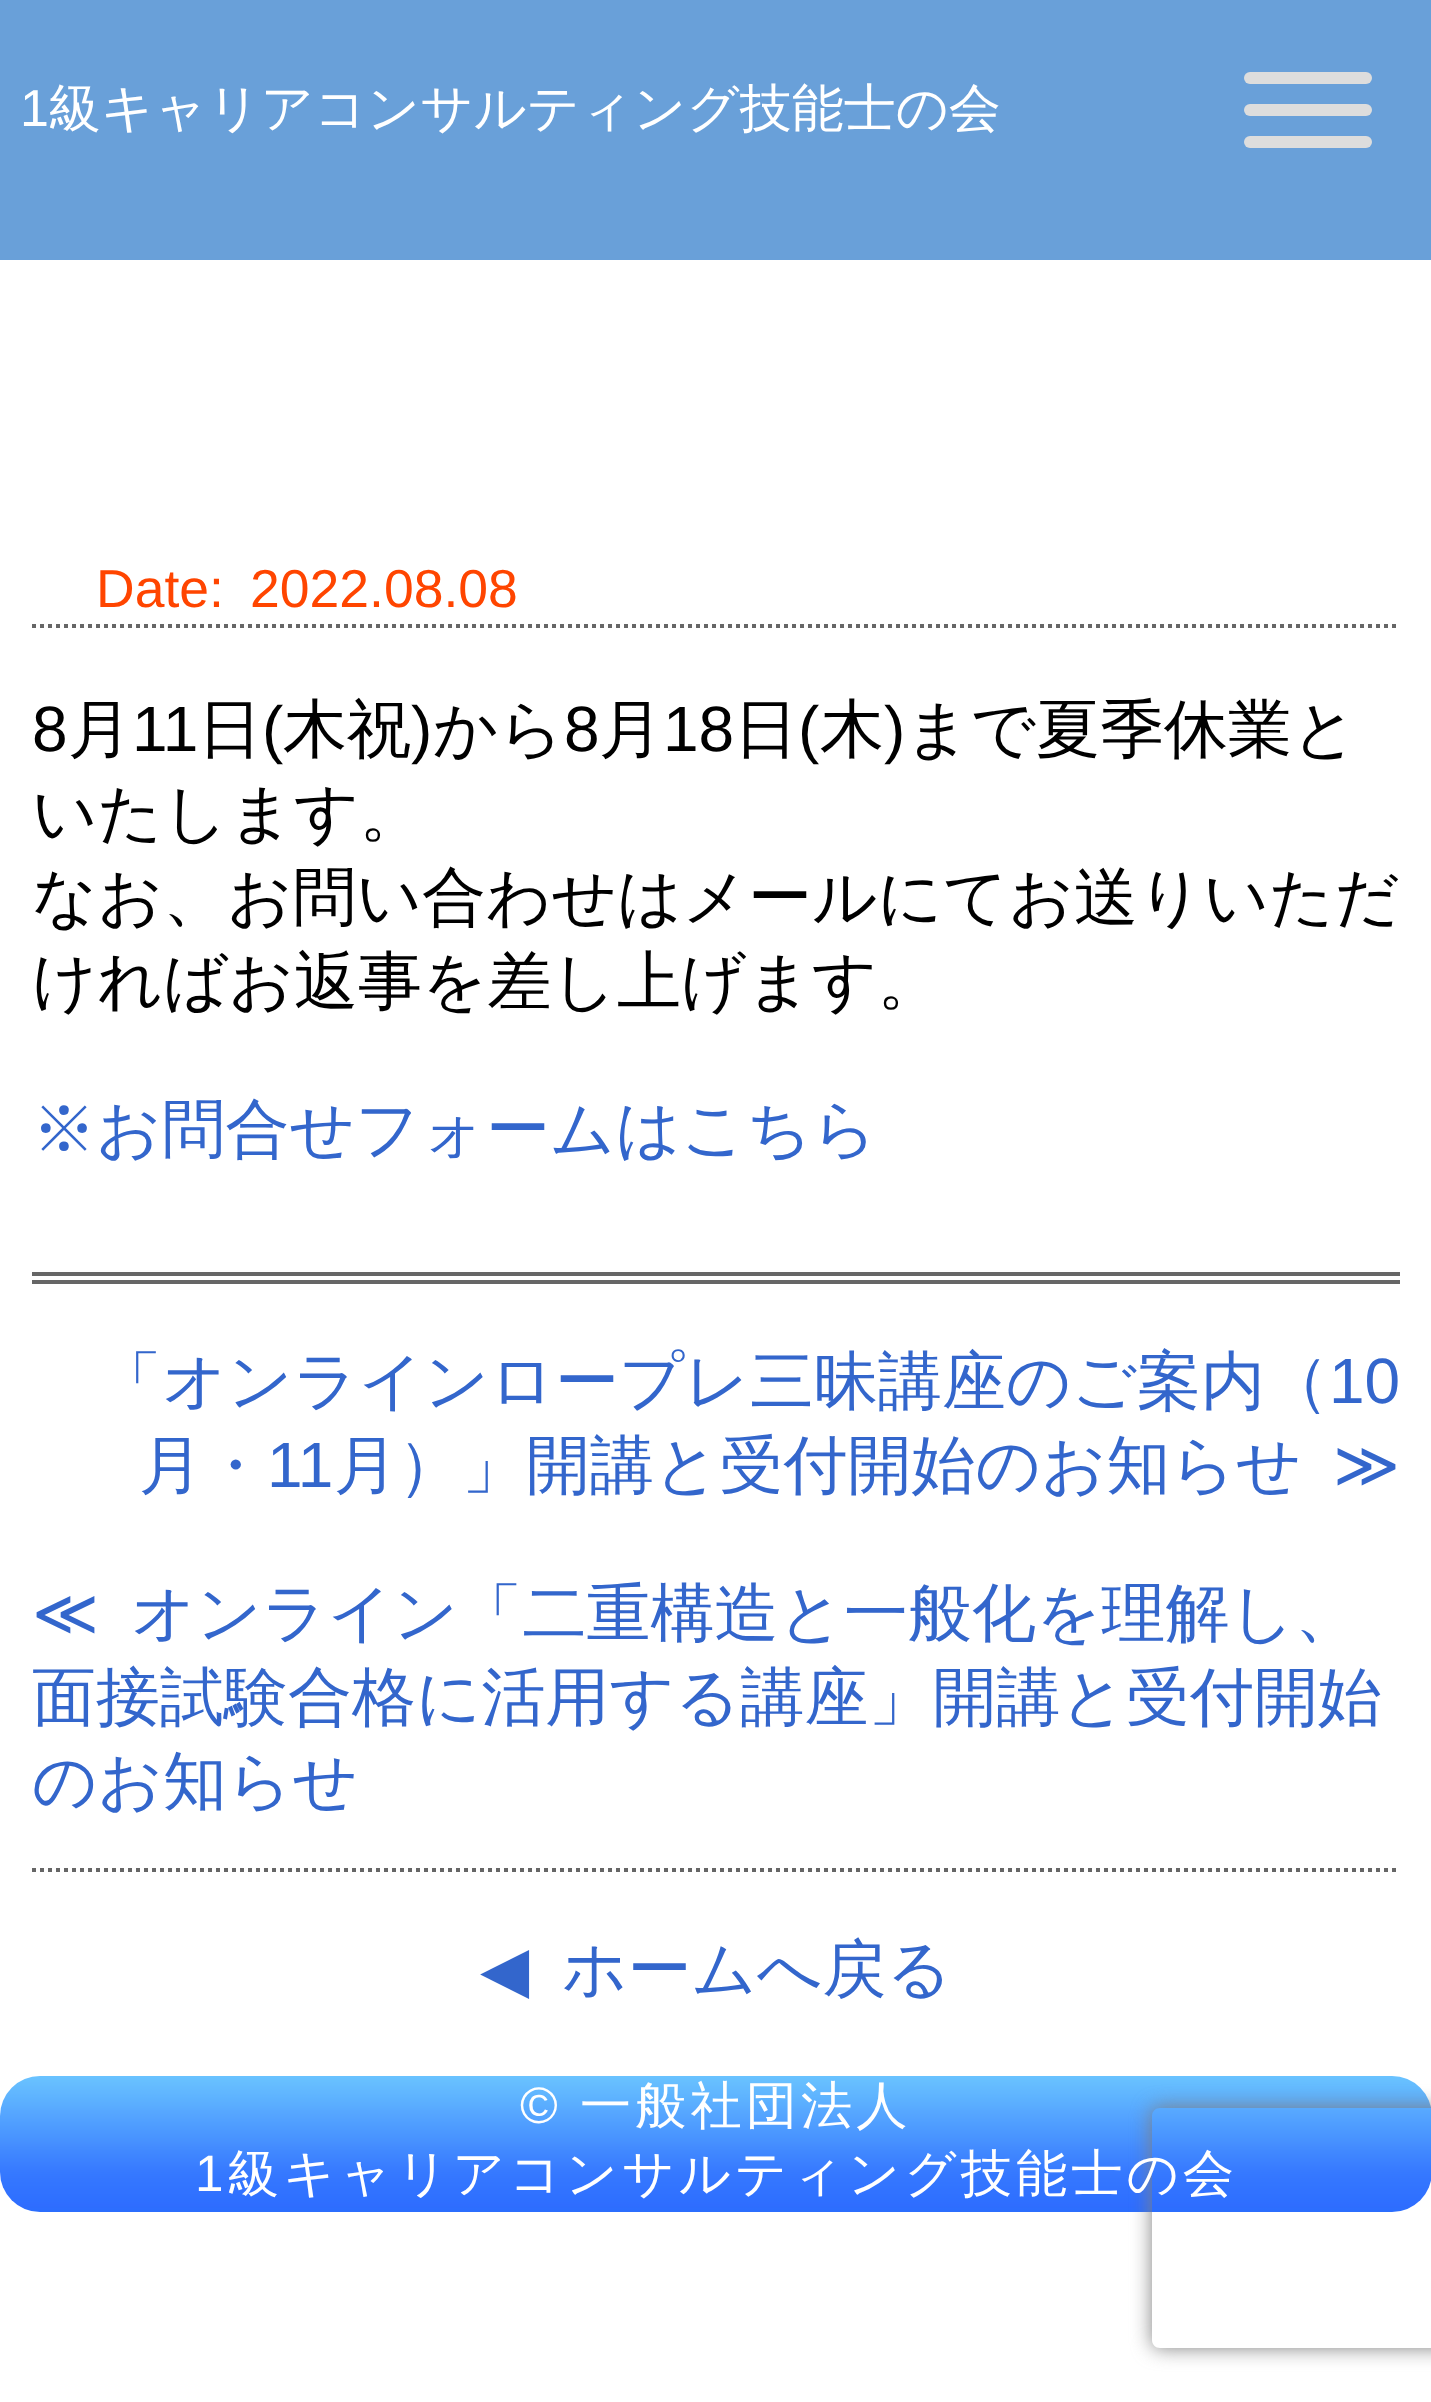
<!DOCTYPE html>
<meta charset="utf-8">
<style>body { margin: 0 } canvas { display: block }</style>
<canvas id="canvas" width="1431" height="2402"></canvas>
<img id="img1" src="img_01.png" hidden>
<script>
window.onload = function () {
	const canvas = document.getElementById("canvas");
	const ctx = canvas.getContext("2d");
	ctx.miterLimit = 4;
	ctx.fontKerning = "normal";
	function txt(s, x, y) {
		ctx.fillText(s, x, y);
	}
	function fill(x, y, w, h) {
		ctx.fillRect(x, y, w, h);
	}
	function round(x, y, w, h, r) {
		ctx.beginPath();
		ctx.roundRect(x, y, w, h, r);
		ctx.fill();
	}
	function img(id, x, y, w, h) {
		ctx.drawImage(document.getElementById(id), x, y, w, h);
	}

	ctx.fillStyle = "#FFFFFF";
	fill(0, 0, 1431, 2402);
	ctx.fillStyle = "#69A0D9";
	fill(0, 0, 1431, 260);
	ctx.fillStyle = "#DDDDDD";
	round(1244, 72, 128, 12, 6);
	round(1244, 104, 128, 12, 6);
	round(1244, 136, 128, 12, 6);
	ctx.beginPath();
	ctx.moveTo(32, 626);
	ctx.lineTo(1400, 626);
	ctx.strokeStyle = "#666666";
	ctx.lineWidth = 4;
	ctx.setLineDash([4, 4]);
	ctx.stroke();
	ctx.fillStyle = "#666666";
	fill(32, 1272, 1368, 4);
	fill(32, 1280, 1368, 4);
	ctx.beginPath();
	ctx.moveTo(32, 1870);
	ctx.lineTo(1400, 1870);
	ctx.stroke();
	img("img1", 0, 2076, 1431, 136);
	ctx.save();
	ctx.beginPath();
	ctx.moveTo(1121, 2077);
	ctx.lineTo(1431, 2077);
	ctx.lineTo(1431, 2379);
	ctx.lineTo(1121, 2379);
	ctx.closePath();
	ctx.moveTo(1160, 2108);
	ctx.lineTo(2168, 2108);
	ctx.bezierCurveTo(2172.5, 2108, 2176, 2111.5, 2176, 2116);
	ctx.lineTo(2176, 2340);
	ctx.bezierCurveTo(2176, 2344.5, 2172.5, 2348, 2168, 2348);
	ctx.lineTo(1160, 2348);
	ctx.bezierCurveTo(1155.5, 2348, 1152, 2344.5, 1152, 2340);
	ctx.lineTo(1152, 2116);
	ctx.bezierCurveTo(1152, 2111.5, 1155.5, 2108, 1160, 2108);
	ctx.closePath();
	ctx.clip("evenodd");
	ctx.fillStyle = "#808080";
	ctx.filter = "blur(10px)";
	ctx.beginPath();
	ctx.roundRect(1152, 2108, 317, 240, 8);
	ctx.fill();
	ctx.filter = "none";
	ctx.restore();
	ctx.font = "52px Liberation Sans";
	ctx.fillStyle = "#FFFFFF";
	txt("1", 20, 126);
	ctx.font = "500 52px WenQuanYi Zen Hei";
	txt("級キャリアコンサルティング技能士の会", 49, 126);
	ctx.font = "53.5px Liberation Sans";
	ctx.fillStyle = "#FF4500";
	txt("Date:", 96, 607);
	txt("2022.08.08", 250, 607);
	ctx.font = "64px Liberation Sans";
	ctx.fillStyle = "#000000";
	txt("8", 32, 751);
	ctx.font = "500 64px WenQuanYi Zen Hei";
	txt("月", 68, 751);
	ctx.font = "64px Liberation Sans";
	txt("11", 132, 751);
	ctx.font = "500 64px WenQuanYi Zen Hei";
	txt("日", 198, 751);
	ctx.font = "64px Liberation Sans";
	txt("(", 262, 751);
	ctx.font = "500 64px WenQuanYi Zen Hei";
	txt("木祝", 283, 751);
	ctx.font = "64px Liberation Sans";
	txt(")", 411, 751);
	ctx.font = "500 64px WenQuanYi Zen Hei";
	txt("から", 433, 751);
	ctx.font = "64px Liberation Sans";
	txt("8", 564, 751);
	ctx.font = "500 64px WenQuanYi Zen Hei";
	txt("月", 599, 751);
	ctx.font = "64px Liberation Sans";
	txt("18", 663, 751);
	ctx.font = "500 64px WenQuanYi Zen Hei";
	txt("日", 734, 751);
	ctx.font = "64px Liberation Sans";
	txt("(", 798, 751);
	ctx.font = "500 64px WenQuanYi Zen Hei";
	txt("木", 820, 751);
	ctx.font = "64px Liberation Sans";
	txt(")", 884, 751);
	ctx.font = "500 64px WenQuanYi Zen Hei";
	txt("まで夏季休業と", 905, 751);
	txt("いたします。", 32, 835);
	txt("なお、お問い合わせはメールにてお送りいただ", 32, 919);
	txt("ければお返事を差し上げます。", 32, 1003);
	ctx.fillStyle = "#3366CC";
	txt("※お問合せフォームはこちら", 32, 1151);
	txt("「オンラインロープレ三昧講座のご案内（", 98, 1403);
	ctx.font = "64px Liberation Sans";
	txt("10", 1329, 1403);
	ctx.font = "500 64px WenQuanYi Zen Hei";
	txt("月・", 139, 1487);
	ctx.font = "64px Liberation Sans";
	txt("11", 267, 1487);
	ctx.font = "500 64px WenQuanYi Zen Hei";
	txt("月）」開講と受付開始のお知らせ", 334, 1487);
	ctx.font = "64px DejaVu Sans";
	txt("≫", 1333, 1487);
	txt("≪", 32, 1635);
	ctx.font = "500 64px WenQuanYi Zen Hei";
	txt("オンライン「二重構造と一般化を理解し、", 131, 1635);
	txt("面接試験合格に活用する講座」開講と受付開始", 32, 1719);
	txt("のお知らせ", 32, 1803);
	ctx.font = "64px DejaVu Sans";
	txt("◀", 480, 1991);
	ctx.font = "500 64px WenQuanYi Zen Hei";
	txt("ホームへ戻る", 562, 1991);
	ctx.letterSpacing = "4px";
	ctx.font = "51.25px Liberation Sans";
	ctx.fillStyle = "#FFFFFF";
	txt("©", 520, 2123);
	ctx.font = "500 51.25px WenQuanYi Zen Hei";
	txt("一般社団法人", 580, 2123);
	ctx.font = "51.25px Liberation Sans";
	txt("1", 195, 2191);
	ctx.font = "500 51.25px WenQuanYi Zen Hei";
	txt("級キャリアコンサルティング技能士の会", 228, 2191);
};
</script>
